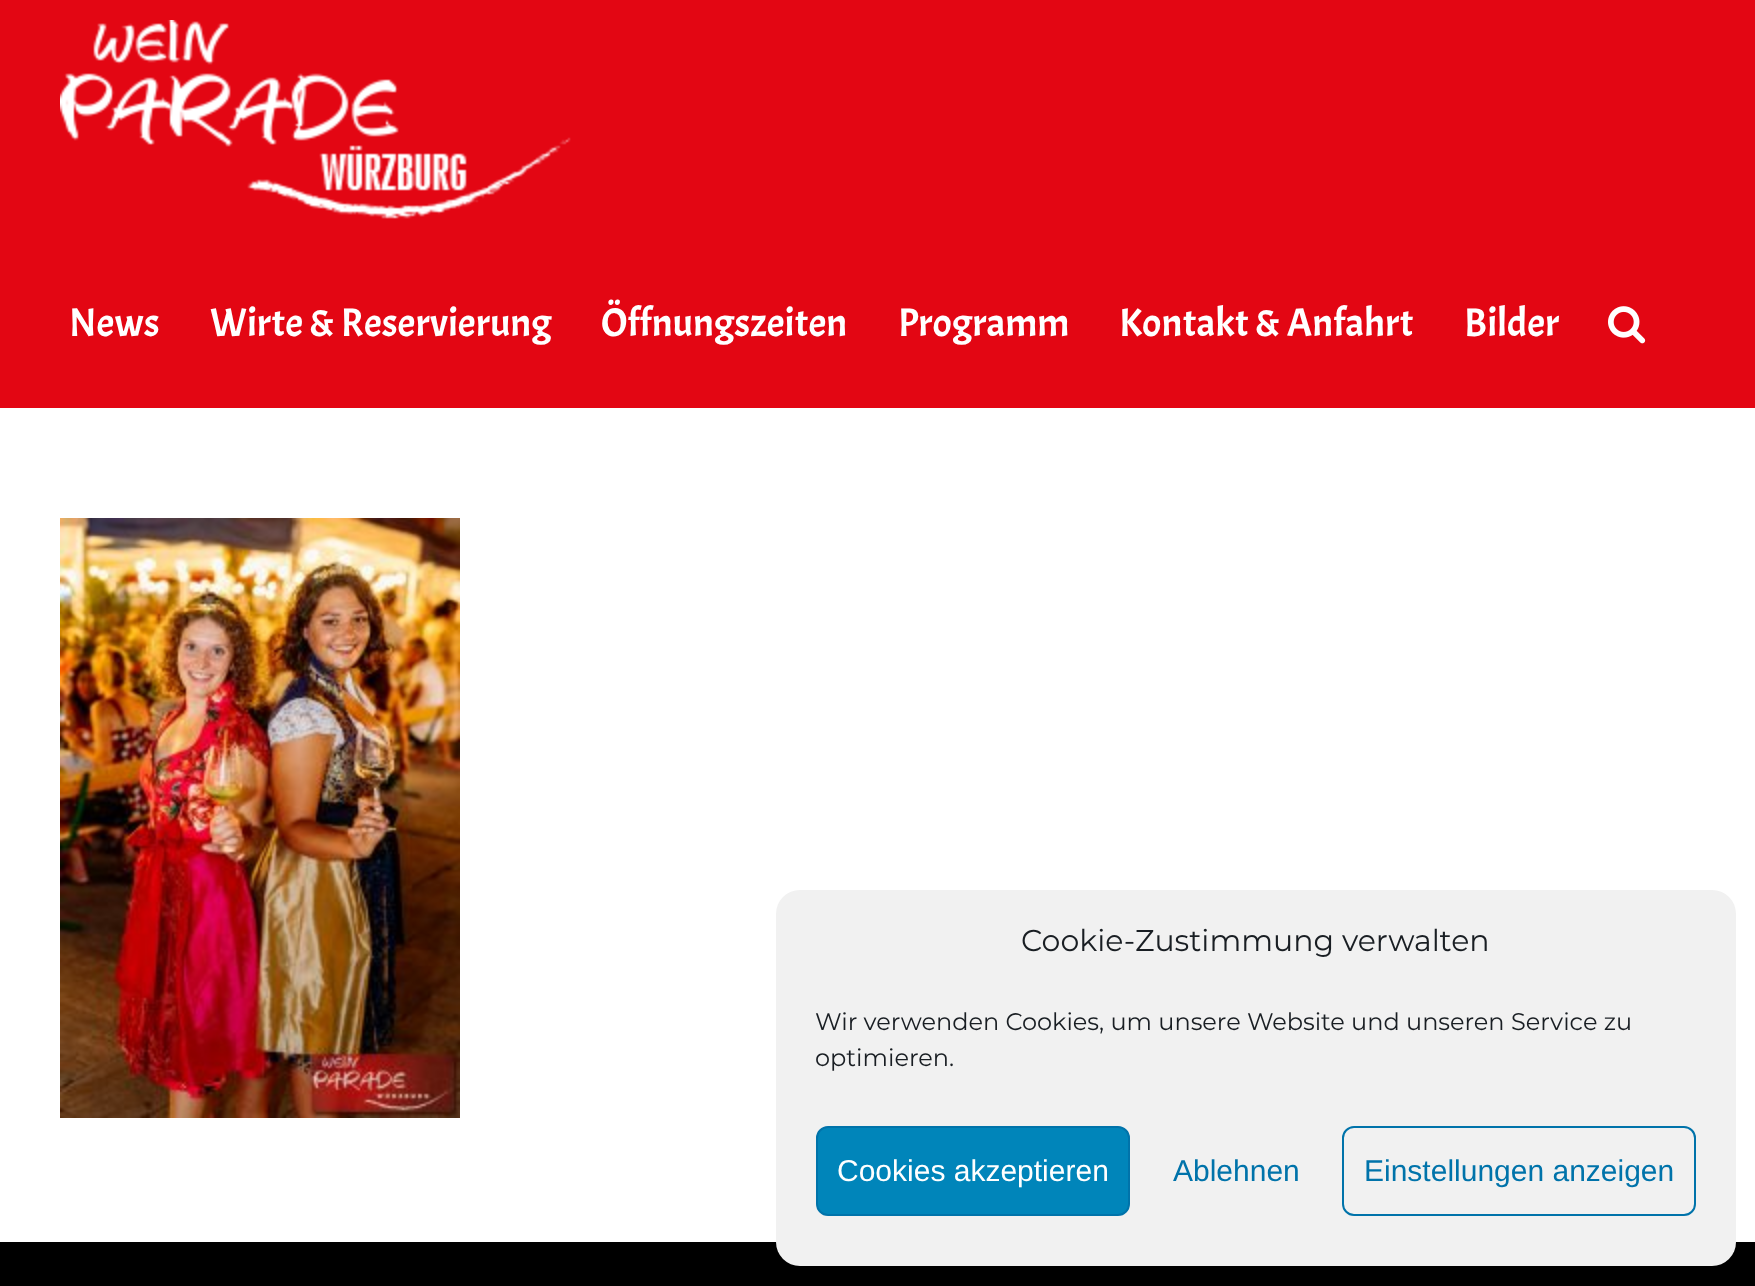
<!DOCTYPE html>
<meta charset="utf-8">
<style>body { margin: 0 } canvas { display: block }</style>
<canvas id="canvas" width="1755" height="1286"></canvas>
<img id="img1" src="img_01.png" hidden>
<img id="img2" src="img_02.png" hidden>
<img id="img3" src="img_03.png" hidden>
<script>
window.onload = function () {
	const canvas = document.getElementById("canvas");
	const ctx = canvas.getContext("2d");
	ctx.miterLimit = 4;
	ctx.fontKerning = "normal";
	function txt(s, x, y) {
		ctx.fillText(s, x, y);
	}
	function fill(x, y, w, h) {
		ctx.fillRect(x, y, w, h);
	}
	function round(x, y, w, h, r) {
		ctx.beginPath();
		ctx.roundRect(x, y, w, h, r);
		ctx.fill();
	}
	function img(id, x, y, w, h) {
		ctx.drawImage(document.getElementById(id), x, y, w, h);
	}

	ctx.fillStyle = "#FFFFFF";
	fill(0, 0, 1755, 1286);
	ctx.fillStyle = "#E30613";
	fill(0, 0, 1755, 408);
	img("img1", 60, 20, 511, 199);
	img("img2", 1608, 306, 38, 38);
	img("img3", 60, 518, 400, 600);
	ctx.fillStyle = "#000000";
	fill(0, 1242, 1755, 44);
	ctx.fillStyle = "#F1F1F1";
	round(776, 890, 960, 376, 24);
	ctx.fillStyle = "#0085BA";
	ctx.beginPath();
	ctx.roundRect(817, 1127, 312, 88, 11);
	ctx.fill();
	ctx.strokeStyle = "#0073AA";
	ctx.lineWidth = 2;
	ctx.stroke();
	ctx.beginPath();
	ctx.roundRect(1343, 1127, 352, 88, 11);
	ctx.stroke();
	ctx.font = "40px Acme";
	ctx.fillStyle = "#FFFFFF";
	txt("News", 69, 336);
	txt("Wirte & Reservierung", 210, 336);
	txt("Öffnungszeiten", 601, 336);
	txt("Programm", 898, 336);
	txt("Kontakt & Anfahrt", 1119, 336);
	txt("Bilder", 1464, 336);
	ctx.font = "30px Montserrat";
	ctx.fillStyle = "#191E23";
	txt("Cookie-Zustimmung verwalten", 1021, 951);
	ctx.font = "24px Montserrat";
	txt("Wir verwenden Cookies, um unsere Website und unseren Service zu", 815, 1030);
	txt("optimieren.", 815, 1066);
	ctx.font = "30px Liberation Sans";
	ctx.fillStyle = "#FFFFFF";
	txt("Cookies akzeptieren", 837, 1181);
	ctx.fillStyle = "#0073AA";
	txt("Ablehnen", 1173, 1181);
	txt("Einstellungen anzeigen", 1364, 1181);
};
</script>
